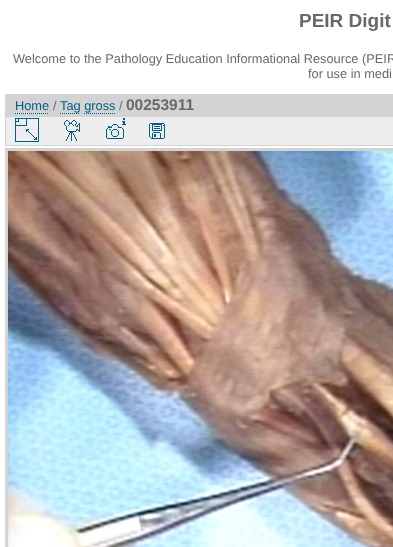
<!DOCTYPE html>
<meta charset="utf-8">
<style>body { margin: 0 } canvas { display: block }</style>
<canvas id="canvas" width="393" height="547"></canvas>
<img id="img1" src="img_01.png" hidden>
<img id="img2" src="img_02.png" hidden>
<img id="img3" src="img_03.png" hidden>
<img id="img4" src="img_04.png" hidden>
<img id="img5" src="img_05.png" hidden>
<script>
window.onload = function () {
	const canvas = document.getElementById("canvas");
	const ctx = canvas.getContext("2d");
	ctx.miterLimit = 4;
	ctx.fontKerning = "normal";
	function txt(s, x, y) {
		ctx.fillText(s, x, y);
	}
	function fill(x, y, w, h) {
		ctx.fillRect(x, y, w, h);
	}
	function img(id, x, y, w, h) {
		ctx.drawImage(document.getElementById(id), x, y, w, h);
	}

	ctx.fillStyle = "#FFFFFF";
	fill(0, 0, 393, 547);
	ctx.fillStyle = "#D3D3D3";
	fill(5, 94, 388, 22);
	ctx.beginPath();
	ctx.moveTo(15, 113.5);
	ctx.lineTo(49, 113.5);
	ctx.strokeStyle = "#005E89";
	ctx.setLineDash([1, 1]);
	ctx.stroke();
	ctx.beginPath();
	ctx.moveTo(60, 113.5);
	ctx.lineTo(80, 113.5);
	ctx.stroke();
	ctx.beginPath();
	ctx.moveTo(84, 113.5);
	ctx.lineTo(115, 113.5);
	ctx.stroke();
	ctx.fillStyle = "#EEEEEE";
	ctx.beginPath();
	ctx.rect(5.5, 116.5, 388, 29);
	ctx.fill();
	ctx.strokeStyle = "#D3D3D3";
	ctx.setLineDash([]);
	ctx.stroke();
	img("img1", 15, 118, 24, 24);
	img("img2", 64, 120, 16, 21);
	img("img3", 106, 118, 20, 21);
	img("img4", 149, 123, 16, 16);
	ctx.lineWidth = 3;
	ctx.strokeRect(6.5, 149.5, 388, 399);
	img("img5", 8, 151, 385, 396);
	ctx.font = "bold 19px Liberation Sans";
	ctx.fillStyle = "#696969";
	txt("PEIR Digit", 299, 27);
	ctx.font = "12.8px Liberation Sans";
	txt("Welcome to the Pathology Education Informational Resource (PEIR", 13, 63);
	txt("for use in medi", 308, 78);
	ctx.fillStyle = "#005E89";
	txt("Home", 15, 110);
	ctx.fillStyle = "#696969";
	txt("/", 53, 110);
	ctx.fillStyle = "#005E89";
	txt("Tag gross", 60, 110);
	ctx.fillStyle = "#696969";
	txt("/", 119, 110);
	ctx.font = "bold 15.5px Liberation Sans";
	txt("00253911", 126, 110);
};
</script>
